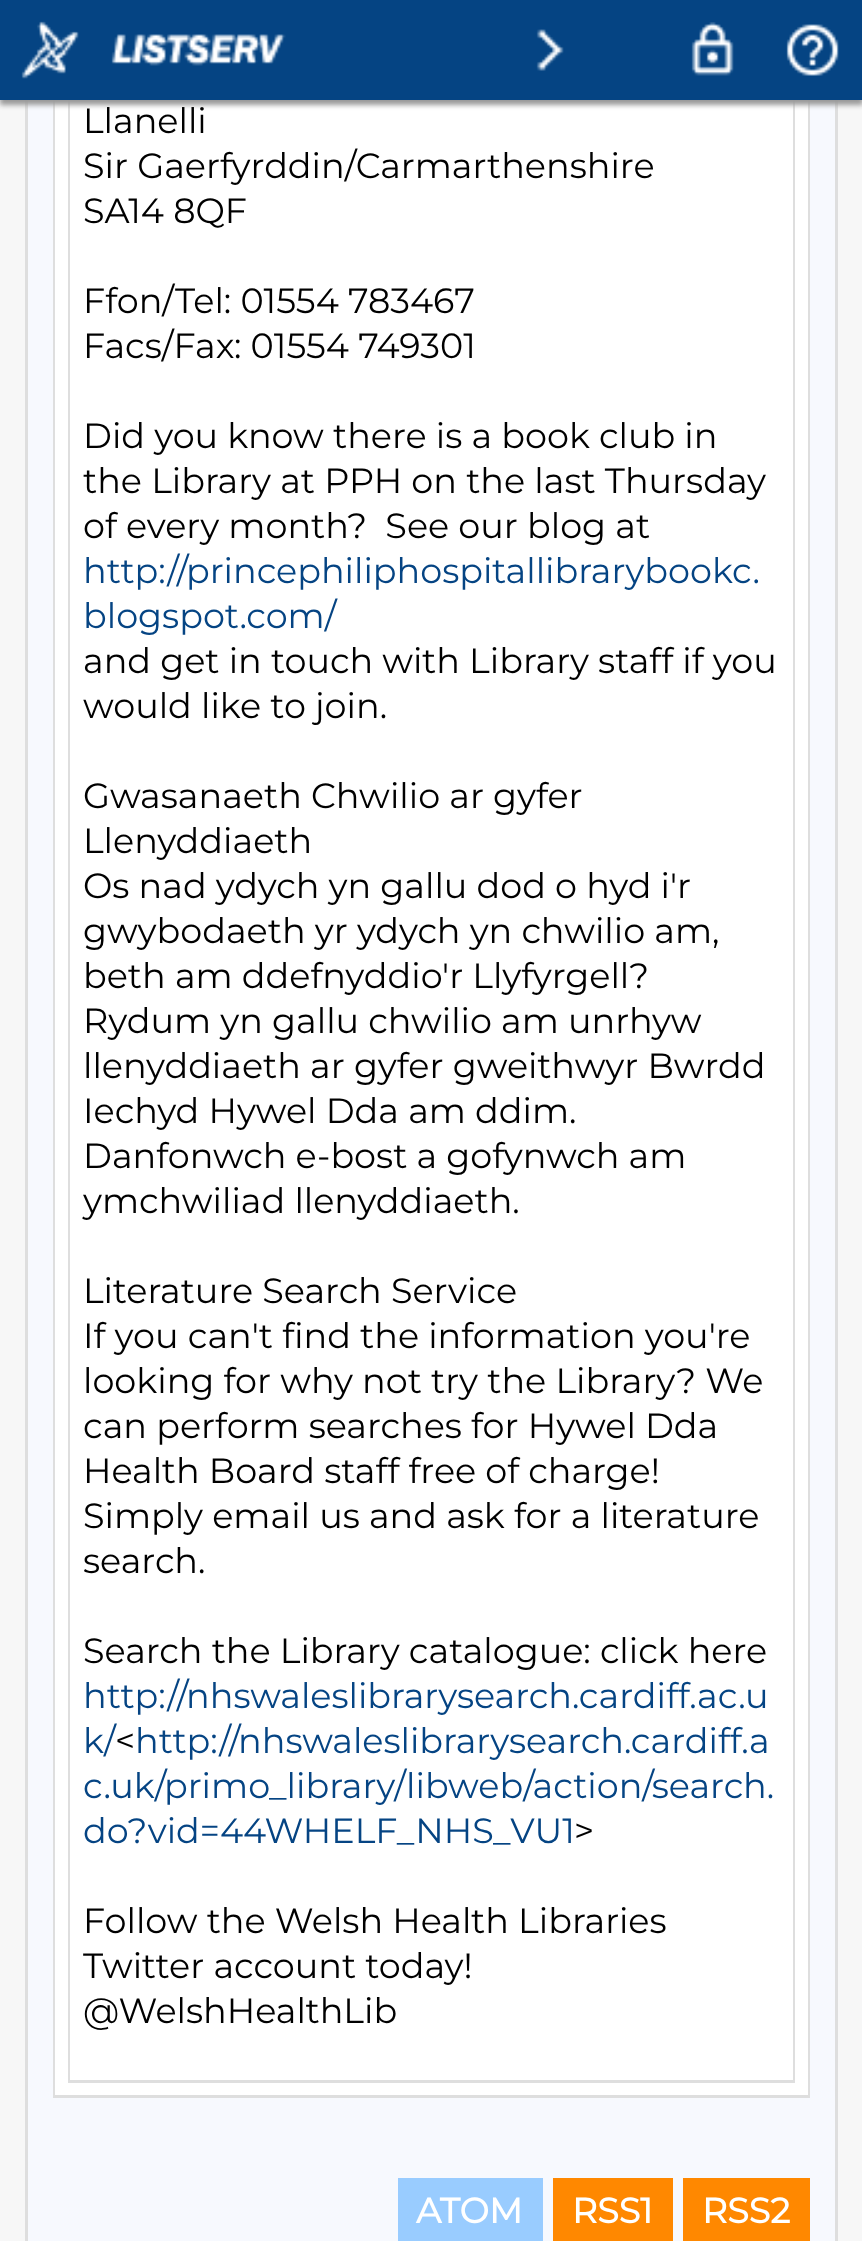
<!DOCTYPE html>
<meta charset="utf-8">
<style>body { margin: 0 } canvas { display: block }</style>
<canvas id="canvas" width="862" height="2241"></canvas>
<img id="img1" src="img_01.png" hidden>
<img id="img2" src="img_02.png" hidden>
<img id="img3" src="img_03.png" hidden>
<img id="img4" src="img_04.png" hidden>
<img id="img5" src="img_05.png" hidden>
<script>
window.onload = function () {
	const canvas = document.getElementById("canvas");
	const ctx = canvas.getContext("2d");
	ctx.miterLimit = 4;
	ctx.fontKerning = "normal";
	function txt(s, x, y) {
		ctx.fillText(s, x, y);
	}
	function fill(x, y, w, h) {
		ctx.fillRect(x, y, w, h);
	}
	function img(id, x, y, w, h) {
		ctx.drawImage(document.getElementById(id), x, y, w, h);
	}

	ctx.fillStyle = "#F7F7F7";
	fill(0, 0, 862, 2241);
	ctx.fillStyle = "#F7F9FE";
	fill(28, 100, 807, 2141);
	ctx.strokeStyle = "#DEDEDE";
	ctx.lineWidth = 3;
	ctx.strokeRect(26.5, -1.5, 810, 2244);
	ctx.strokeRect(54.5, -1.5, 754, 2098);
	ctx.fillStyle = "#FFFFFF";
	fill(55, 100, 753, 1995);
	ctx.strokeRect(69.5, -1.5, 724, 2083);
	fill(70, 100, 723, 1980);
	ctx.fillStyle = "#999999";
	ctx.filter = "blur(2.5px)";
	ctx.beginPath();
	ctx.rect(0, 5, 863, 100);
	ctx.fill();
	ctx.filter = "none";
	ctx.fillStyle = "#054483";
	fill(0, 0, 862, 100);
	img("img1", 21, 21, 58, 58);
	img("img2", 111, 34, 175, 32);
	img("img3", 536, 29, 28, 42);
	img("img4", 691, 22, 43, 54);
	img("img5", 786, 24, 53, 52);
	ctx.fillStyle = "#99CCFF";
	fill(398, 2178, 145, 63);
	ctx.fillStyle = "#FF8800";
	fill(553, 2178, 120, 63);
	fill(683, 2178, 127, 63);
	ctx.font = "100 35px Montserrat";
	ctx.fillStyle = "#000000";
	txt("Llanelli", 83, 133);
	txt("Sir Gaerfyrddin/Carmarthenshire", 83, 178);
	txt("SA14 8QF", 83, 223);
	txt("Ffon/Tel: 01554 783467", 83, 313);
	txt("Facs/Fax: 01554 749301", 83, 358);
	txt("Did you know there is a book club in", 83, 448);
	txt("the Library at PPH on the last Thursday", 83, 493);
	txt("of every month?  See our blog at", 83, 538);
	ctx.fillStyle = "#054483";
	txt("http://princephiliphospitallibrarybookc.", 83, 583);
	txt("blogspot.com/", 83, 628);
	ctx.fillStyle = "#000000";
	txt("and get in touch with Library staff if you", 83, 673);
	txt("would like to join.", 83, 718);
	txt("Gwasanaeth Chwilio ar gyfer", 83, 808);
	txt("Llenyddiaeth", 83, 853);
	txt("Os nad ydych yn gallu dod o hyd i'r", 83, 898);
	txt("gwybodaeth yr ydych yn chwilio am,", 83, 943);
	txt("beth am ddefnyddio'r Llyfyrgell?", 83, 988);
	txt("Rydum yn gallu chwilio am unrhyw", 83, 1033);
	txt("llenyddiaeth ar gyfer gweithwyr Bwrdd", 83, 1078);
	txt("Iechyd Hywel Dda am ddim.", 83, 1123);
	txt("Danfonwch e-bost a gofynwch am", 83, 1168);
	txt("ymchwiliad llenyddiaeth.", 83, 1213);
	txt("Literature Search Service", 83, 1303);
	txt("If you can't find the information you're", 83, 1348);
	txt("looking for why not try the Library? We", 83, 1393);
	txt("can perform searches for Hywel Dda", 83, 1438);
	txt("Health Board staff free of charge!", 83, 1483);
	txt("Simply email us and ask for a literature", 83, 1528);
	txt("search.", 83, 1573);
	txt("Search the Library catalogue: click here", 83, 1663);
	ctx.fillStyle = "#054483";
	txt("http://nhswaleslibrarysearch.cardiff.ac.u", 83, 1708);
	txt("k/", 83, 1753);
	ctx.fillStyle = "#000000";
	txt("<", 115, 1753);
	ctx.fillStyle = "#054483";
	txt("http://nhswaleslibrarysearch.cardiff.a", 135, 1753);
	txt("c.uk/primo_library/libweb/action/search.", 83, 1798);
	txt("do?vid=44WHELF_NHS_VU1", 83, 1843);
	ctx.fillStyle = "#000000";
	txt(">", 574, 1843);
	txt("Follow the Welsh Health Libraries", 83, 1933);
	txt("Twitter account today!", 83, 1978);
	txt("@WelshHealthLib", 83, 2023);
	ctx.font = "bold 35px Montserrat";
	ctx.fillStyle = "#FFFFFF";
	txt("ATOM", 416, 2223);
	txt("RSS1", 572, 2223);
	txt("RSS2", 702, 2223);
};
</script>
